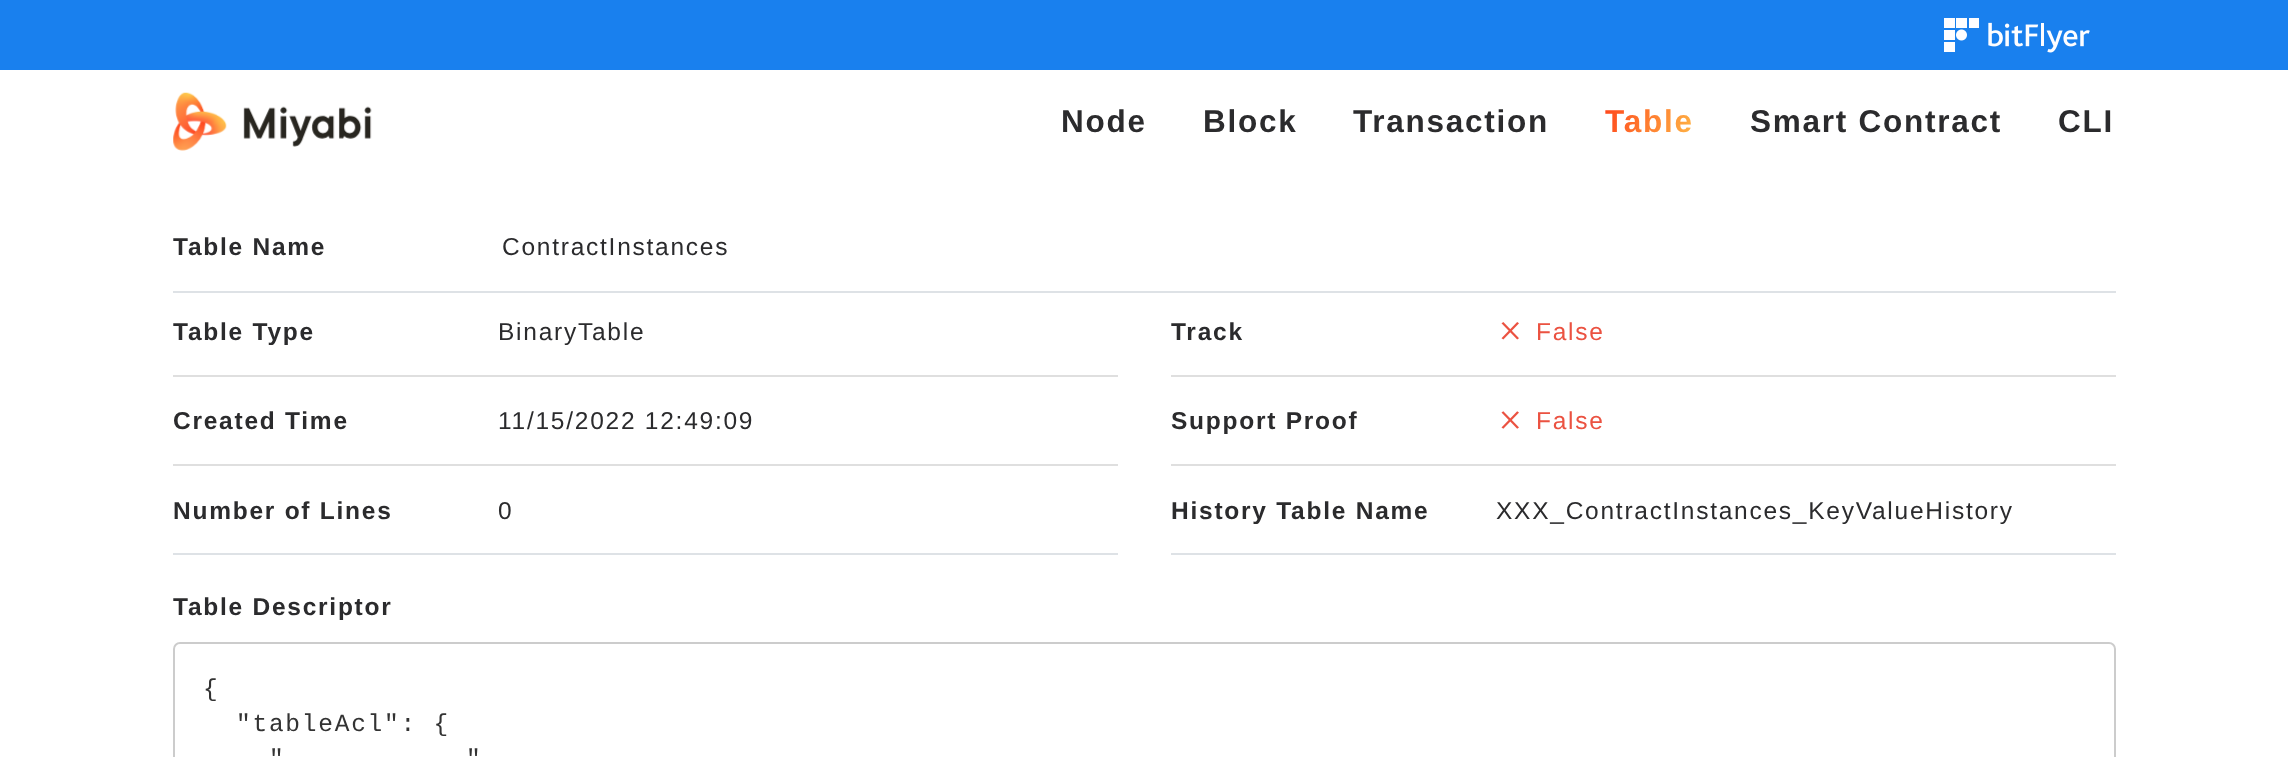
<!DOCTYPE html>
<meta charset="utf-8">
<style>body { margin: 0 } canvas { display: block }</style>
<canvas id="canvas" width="2288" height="757"></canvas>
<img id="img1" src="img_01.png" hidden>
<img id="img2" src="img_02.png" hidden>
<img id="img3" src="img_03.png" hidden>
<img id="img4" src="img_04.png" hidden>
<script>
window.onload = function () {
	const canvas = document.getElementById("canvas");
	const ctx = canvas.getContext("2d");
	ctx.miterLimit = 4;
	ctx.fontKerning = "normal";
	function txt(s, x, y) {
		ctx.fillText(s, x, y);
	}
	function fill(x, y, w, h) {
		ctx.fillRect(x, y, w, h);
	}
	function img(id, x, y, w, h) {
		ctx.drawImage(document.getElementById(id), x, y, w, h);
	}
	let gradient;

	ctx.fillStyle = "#FFFFFF";
	fill(0, 0, 2288, 757);
	ctx.fillStyle = "#1980EE";
	fill(0, 0, 2288, 70);
	img("img1", 1944, 18, 146, 35);
	img("img2", 173, 92, 199, 59);
	ctx.fillStyle = "#DEE2E6";
	fill(173, 291, 1943, 2);
	fill(173, 553, 945, 2);
	ctx.fillStyle = "#DFDFDF";
	fill(173, 375, 945, 2);
	fill(173, 464, 945, 2);
	ctx.fillStyle = "#DEE2E6";
	fill(1171, 553, 945, 2);
	img("img3", 1501, 322, 18, 18);
	ctx.fillStyle = "#DFDFDF";
	fill(1171, 375, 945, 2);
	img("img4", 1501, 411, 18, 18);
	fill(1171, 464, 945, 2);
	ctx.beginPath();
	ctx.roundRect(174, 643, 1941, 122, 6);
	ctx.strokeStyle = "#CCCCCC";
	ctx.lineWidth = 2;
	ctx.stroke();
	ctx.letterSpacing = "1.75px";
	ctx.font = "bold 31.5px Liberation Sans";
	ctx.fillStyle = "#2B2B2D";
	txt("Node", 1061, 132);
	txt("Block", 1203, 132);
	txt("Transaction", 1353, 132);
	gradient = ctx.createLinearGradient(1572, 96, 1727, 149);
	gradient.addColorStop(0.17, "#FF4019");
	gradient.addColorStop(0.86, "#FFC34A");
	ctx.fillStyle = gradient;
	txt("Table", 1605, 132);
	ctx.fillStyle = "#2B2B2D";
	txt("Smart Contract", 1750, 132);
	txt("CLI", 2058, 132);
	ctx.font = "bold 24.5px Liberation Sans";
	txt("Table Name", 173, 255);
	ctx.font = "24.5px Liberation Sans";
	txt("ContractInstances", 502, 255);
	ctx.font = "bold 24.5px Liberation Sans";
	txt("Table Type", 173, 340);
	ctx.font = "24.5px Liberation Sans";
	txt("BinaryTable", 498, 340);
	ctx.font = "bold 24.5px Liberation Sans";
	txt("Created Time", 173, 429);
	ctx.font = "24.5px Liberation Sans";
	txt("11/15/2022 12:49:09", 498, 429);
	ctx.font = "bold 24.5px Liberation Sans";
	txt("Number of Lines", 173, 519);
	ctx.font = "24.5px Liberation Sans";
	txt("0", 498, 519);
	ctx.font = "bold 24.5px Liberation Sans";
	txt("Track", 1171, 340);
	ctx.font = "24.5px Liberation Sans";
	ctx.fillStyle = "#EB5241";
	txt("False", 1536, 340);
	ctx.font = "bold 24.5px Liberation Sans";
	ctx.fillStyle = "#2B2B2D";
	txt("Support Proof", 1171, 429);
	ctx.font = "24.5px Liberation Sans";
	ctx.fillStyle = "#EB5241";
	txt("False", 1536, 429);
	ctx.font = "bold 24.5px Liberation Sans";
	ctx.fillStyle = "#2B2B2D";
	txt("History Table Name", 1171, 519);
	ctx.font = "24.5px Liberation Sans";
	txt("XXX_ContractInstances_KeyValueHistory", 1496, 519);
	ctx.font = "bold 24.5px Liberation Sans";
	txt("Table Descriptor", 173, 615);
	ctx.font = "24.5px Liberation Mono";
	ctx.fillStyle = "#333333";
	txt("{", 203, 696);
	txt("\"tableAcl\": {", 236, 731);
	txt("\"", 269, 766);
	txt("\"", 466, 766);
};
</script>
